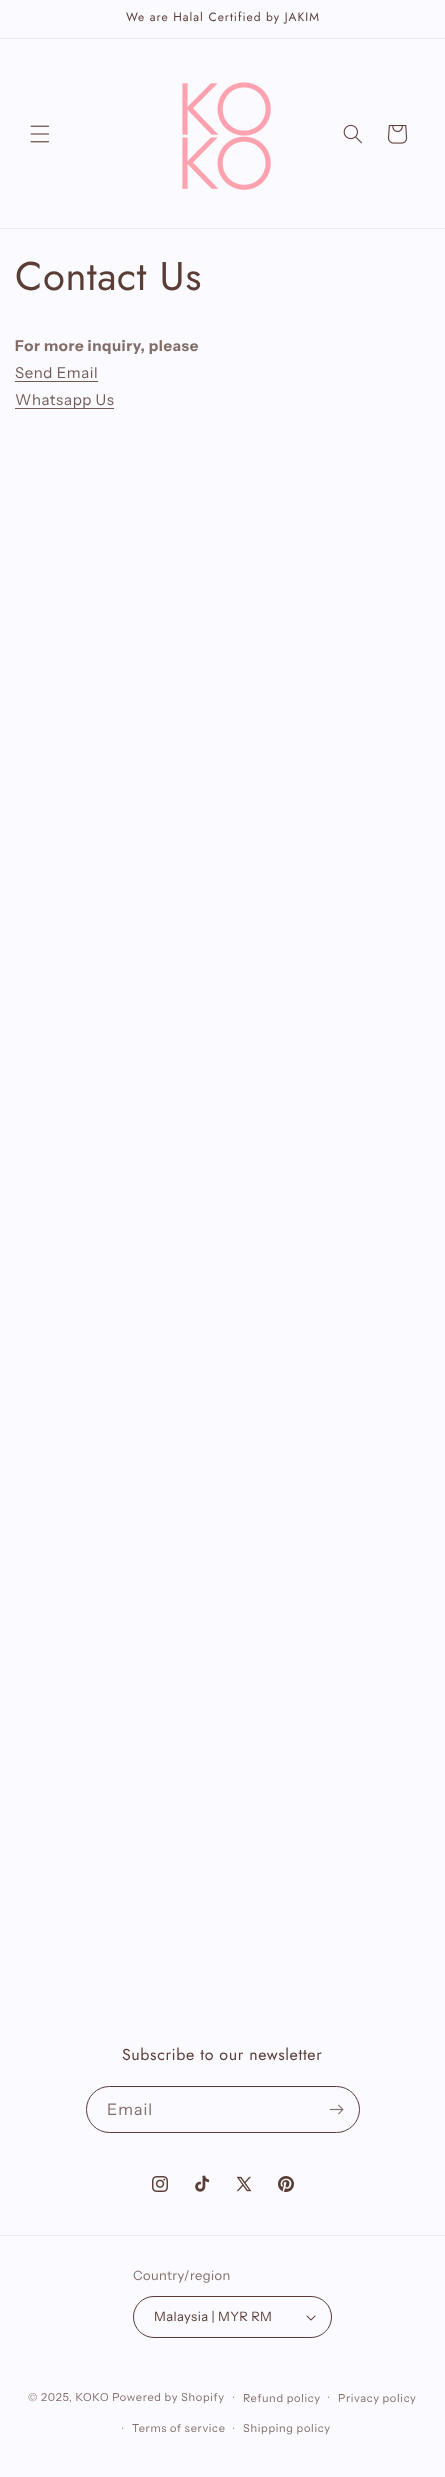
<!DOCTYPE html>
<meta charset="utf-8">
<style>body { margin: 0 } canvas { display: block }</style>
<canvas id="canvas" width="445" height="2477"></canvas>
<img id="img1" src="img_01.png" hidden>
<img id="img2" src="img_02.png" hidden>
<img id="img3" src="img_03.png" hidden>
<img id="img4" src="img_04.png" hidden>
<img id="img5" src="img_05.png" hidden>
<img id="img6" src="img_06.png" hidden>
<img id="img7" src="img_07.png" hidden>
<img id="img8" src="img_08.png" hidden>
<img id="img9" src="img_09.png" hidden>
<img id="img10" src="img_10.png" hidden>
<script>
window.onload = function () {
	const canvas = document.getElementById("canvas");
	const ctx = canvas.getContext("2d");
	ctx.miterLimit = 4;
	ctx.fontKerning = "normal";
	function txt(s, x, y) {
		ctx.fillText(s, x, y);
	}
	function fill(x, y, w, h) {
		ctx.fillRect(x, y, w, h);
	}
	function img(id, x, y, w, h) {
		ctx.drawImage(document.getElementById(id), x, y, w, h);
	}

	ctx.fillStyle = "#FAFAFF";
	fill(0, 0, 445, 2477);
	ctx.fillStyle = "#EDEBEF";
	fill(0, 38, 445, 1);
	fill(0, 228, 445, 1);
	img("img1", 30, 125, 20, 18);
	img("img2", 182, 82, 89, 108);
	img("img3", 343, 124, 19, 20);
	img("img4", 388, 125, 20, 19);
	ctx.fillStyle = "#725A54";
	fill(15, 381, 83, 1);
	fill(15, 408, 99, 1);
	ctx.beginPath();
	ctx.roundRect(86.5, 2086.5, 273, 46, 23);
	ctx.strokeStyle = "#5A3E36";
	ctx.stroke();
	img("img5", 329, 2104, 15, 11);
	img("img6", 152, 2176, 16, 16);
	img("img7", 195, 2175, 15, 17);
	img("img8", 236, 2176, 16, 16);
	img("img9", 278, 2176, 16, 16);
	ctx.fillStyle = "#EDEBEF";
	fill(0, 2235, 445, 1);
	img("img10", 306, 2315, 10, 6);
	ctx.beginPath();
	ctx.roundRect(133.5, 2296.5, 198, 41, 20.5);
	ctx.stroke();
	ctx.letterSpacing = "1px";
	ctx.font = "12px Jost";
	ctx.fillStyle = "#5A3E36";
	txt("We are Halal Certified by JAKIM", 126, 21);
	ctx.letterSpacing = "0.6px";
	ctx.font = "40px Jost";
	txt("Contact Us", 15, 290);
	ctx.font = "bold 15px Instrument Sans";
	ctx.fillStyle = "#826D68";
	txt("For more inquiry, please", 15, 351);
	ctx.font = "15px Instrument Sans";
	ctx.fillStyle = "#725A54";
	txt("Send Email", 15, 378);
	txt("Whatsapp Us", 15, 405);
	ctx.font = "16px Jost";
	ctx.fillStyle = "#5A3E36";
	txt("Subscribe to our newsletter", 122, 2060);
	ctx.letterSpacing = "1px";
	ctx.font = "16px Instrument Sans";
	ctx.fillStyle = "#826D68";
	txt("Email", 107, 2115);
	ctx.letterSpacing = "0.4px";
	ctx.font = "13px Instrument Sans";
	txt("Country/region", 133, 2280);
	ctx.fillStyle = "#5A3E36";
	txt("Malaysia | MYR RM", 154, 2321);
	ctx.letterSpacing = "0.7px";
	ctx.font = "11px Instrument Sans";
	ctx.fillStyle = "#826D68";
	txt("© 2025, KOKO Powered by Shopify", 28, 2401);
	ctx.font = "10px Instrument Sans";
	txt("·", 233, 2401);
	ctx.font = "11px Instrument Sans";
	txt("Refund policy", 243, 2402);
	ctx.font = "10px Instrument Sans";
	txt("·", 328, 2401);
	ctx.font = "11px Instrument Sans";
	txt("Privacy policy", 338, 2402);
	ctx.font = "10px Instrument Sans";
	txt("·", 122, 2432);
	ctx.font = "11px Instrument Sans";
	txt("Terms of service", 132, 2432);
	ctx.font = "10px Instrument Sans";
	txt("·", 233, 2432);
	ctx.font = "11px Instrument Sans";
	txt("Shipping policy", 243, 2432);
};
</script>
